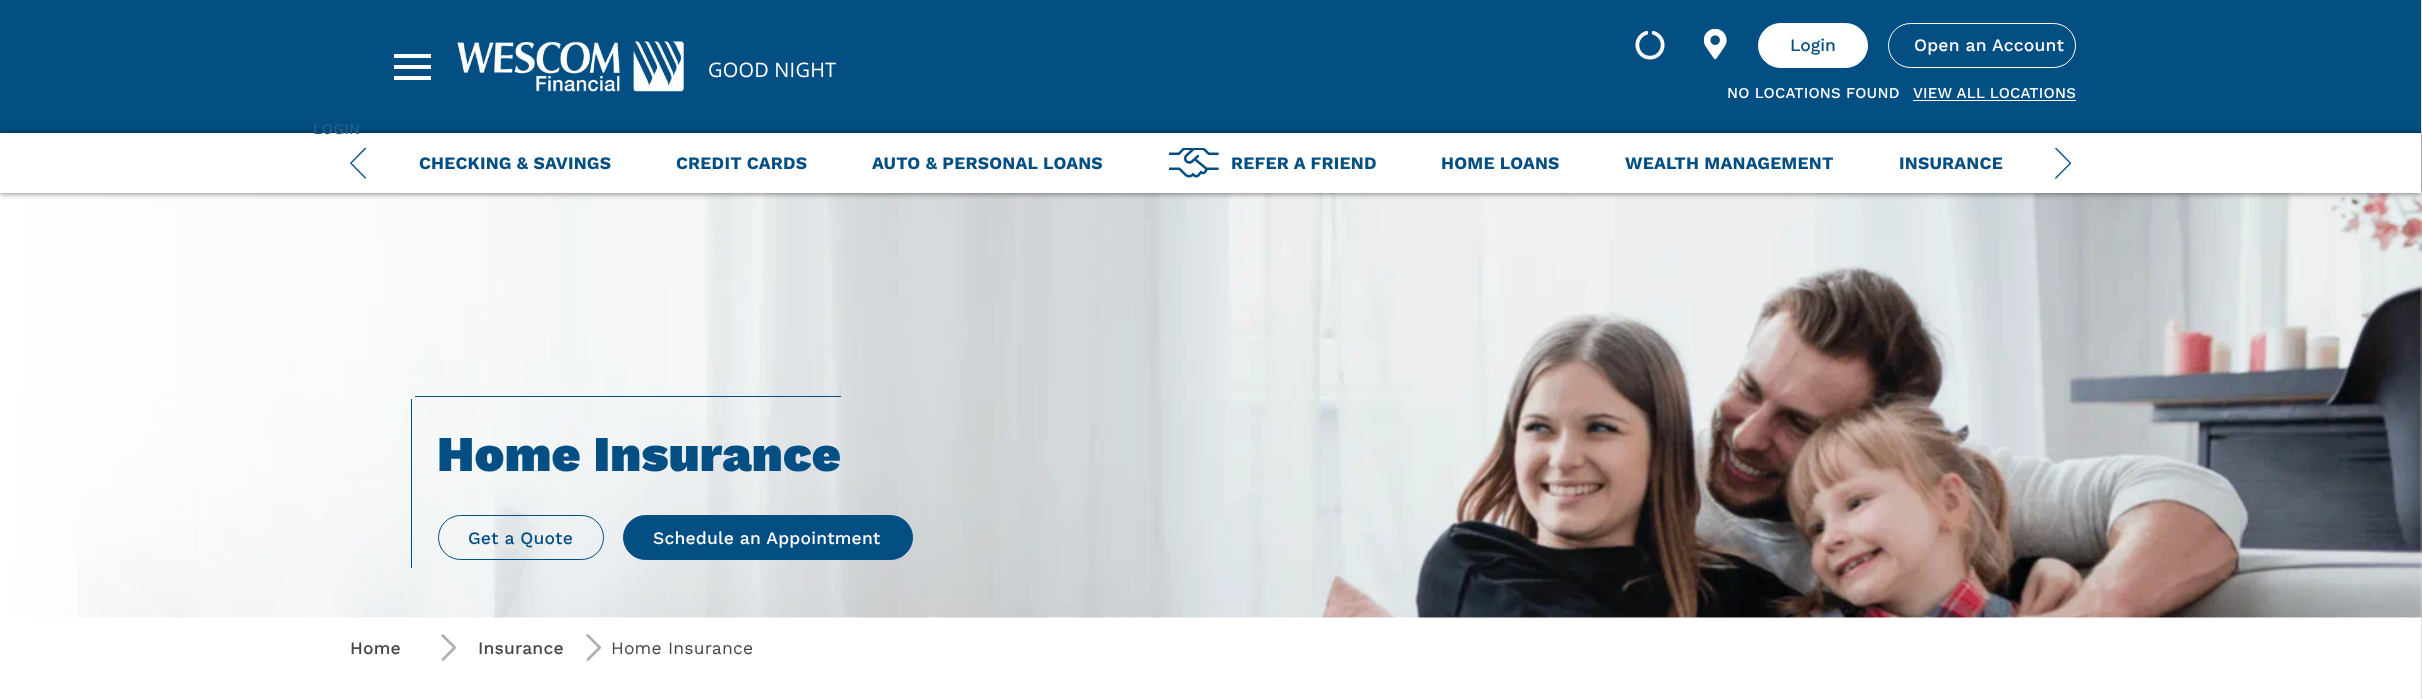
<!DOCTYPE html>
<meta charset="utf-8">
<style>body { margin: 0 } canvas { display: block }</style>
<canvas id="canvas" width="2422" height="699"></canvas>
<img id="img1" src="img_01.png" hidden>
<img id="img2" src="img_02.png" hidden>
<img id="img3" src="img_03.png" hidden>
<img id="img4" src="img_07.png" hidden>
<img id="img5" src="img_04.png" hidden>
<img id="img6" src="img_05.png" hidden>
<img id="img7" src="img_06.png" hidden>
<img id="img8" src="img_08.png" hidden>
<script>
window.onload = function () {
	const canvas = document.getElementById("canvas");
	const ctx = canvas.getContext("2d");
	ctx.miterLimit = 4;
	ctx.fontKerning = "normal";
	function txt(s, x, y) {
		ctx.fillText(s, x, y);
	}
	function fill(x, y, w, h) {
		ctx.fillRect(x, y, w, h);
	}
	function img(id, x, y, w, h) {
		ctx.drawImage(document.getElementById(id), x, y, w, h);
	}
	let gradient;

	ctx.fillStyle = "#FFFFFF";
	fill(0, 0, 2422, 699);
	ctx.fillStyle = "#E0E0E0";
	fill(2421, 0, 1, 699);
	ctx.fillStyle = "#034F84";
	fill(0, 0, 2421, 133);
	ctx.fillStyle = "#FFFFFF";
	fill(394, 54, 37, 4);
	fill(394, 65, 37, 4);
	fill(394, 76, 37, 4);
	img("img1", 457, 41, 227, 51);
	img("img2", 1635, 30, 30, 30);
	img("img3", 1704, 29, 23, 31);
	ctx.beginPath();
	ctx.roundRect(1758.5, 23.5, 109, 44, 22);
	ctx.fill();
	ctx.strokeStyle = "#FFFFFF";
	ctx.stroke();
	ctx.beginPath();
	ctx.roundRect(1888.5, 23.5, 187, 44, 22);
	ctx.stroke();
	fill(1913, 100, 163, 1);
	img("img4", 7, 193, 2415, 425);
	gradient = ctx.createLinearGradient(0, 405, 2421, 405);
	gradient.addColorStop(0, "#FFFFFF");
	gradient.addColorStop(0.5, "rgba(255, 255, 255, 0)");
	ctx.fillStyle = gradient;
	fill(7, 193, 1144, 425);
	ctx.fillStyle = "rgba(0, 0, 0, 0.6)";
	ctx.filter = "blur(3px)";
	ctx.beginPath();
	ctx.rect(0, 133, 2421, 60);
	ctx.fill();
	ctx.filter = "none";
	ctx.fillStyle = "#FFFFFF";
	fill(0, 133, 2421, 60);
	img("img5", 350, 148, 16, 31);
	img("img6", 1169, 148, 50, 30);
	img("img7", 2055, 148, 16, 31);
	ctx.fillStyle = "#034F84";
	fill(411, 399, 1, 169);
	fill(415, 396, 426, 1);
	ctx.beginPath();
	ctx.roundRect(438.5, 515.5, 165, 44, 22);
	ctx.strokeStyle = "#034F84";
	ctx.stroke();
	ctx.beginPath();
	ctx.roundRect(623.5, 515.5, 289, 44, 22);
	ctx.fill();
	ctx.stroke();
	img("img8", 441, 634, 15, 27);
	img("img8", 586, 634, 15, 27);
	ctx.letterSpacing = "0.2px";
	ctx.font = "20px Open Sans";
	ctx.fillStyle = "#FFFFFF";
	txt("GOOD NIGHT", 708, 77);
	ctx.letterSpacing = "0px";
	ctx.font = "500 17.5px Work Sans";
	ctx.fillStyle = "#034F84";
	txt("Login", 1790, 51);
	ctx.letterSpacing = "0.2px";
	ctx.fillStyle = "#FFFFFF";
	txt("Open an Account", 1914, 51);
	ctx.font = "500 15px Work Sans";
	txt("NO LOCATIONS FOUND", 1727, 98);
	txt("VIEW ALL LOCATIONS", 1913, 98);
	ctx.fillStyle = "#23618C";
	txt("LOGIN", 313, 134);
	ctx.font = "bold 17.5px Work Sans";
	ctx.fillStyle = "#034F84";
	txt("CHECKING & SAVINGS", 419, 169);
	txt("CREDIT CARDS", 676, 169);
	txt("AUTO & PERSONAL LOANS", 872, 169);
	txt("REFER A FRIEND", 1231, 169);
	txt("HOME LOANS", 1441, 169);
	txt("WEALTH MANAGEMENT", 1625, 169);
	txt("INSURANCE", 1899, 169);
	ctx.font = "900 50px Work Sans";
	txt("Home Insurance", 437, 471);
	ctx.font = "500 17.5px Work Sans";
	txt("Get a Quote", 468, 544);
	ctx.fillStyle = "#FFFFFF";
	txt("Schedule an Appointment", 653, 544);
	ctx.fillStyle = "#464646";
	txt("Home", 350, 654);
	txt("Insurance", 478, 654);
	ctx.font = "17.5px Work Sans";
	txt("Home Insurance", 611, 654);
};
</script>
